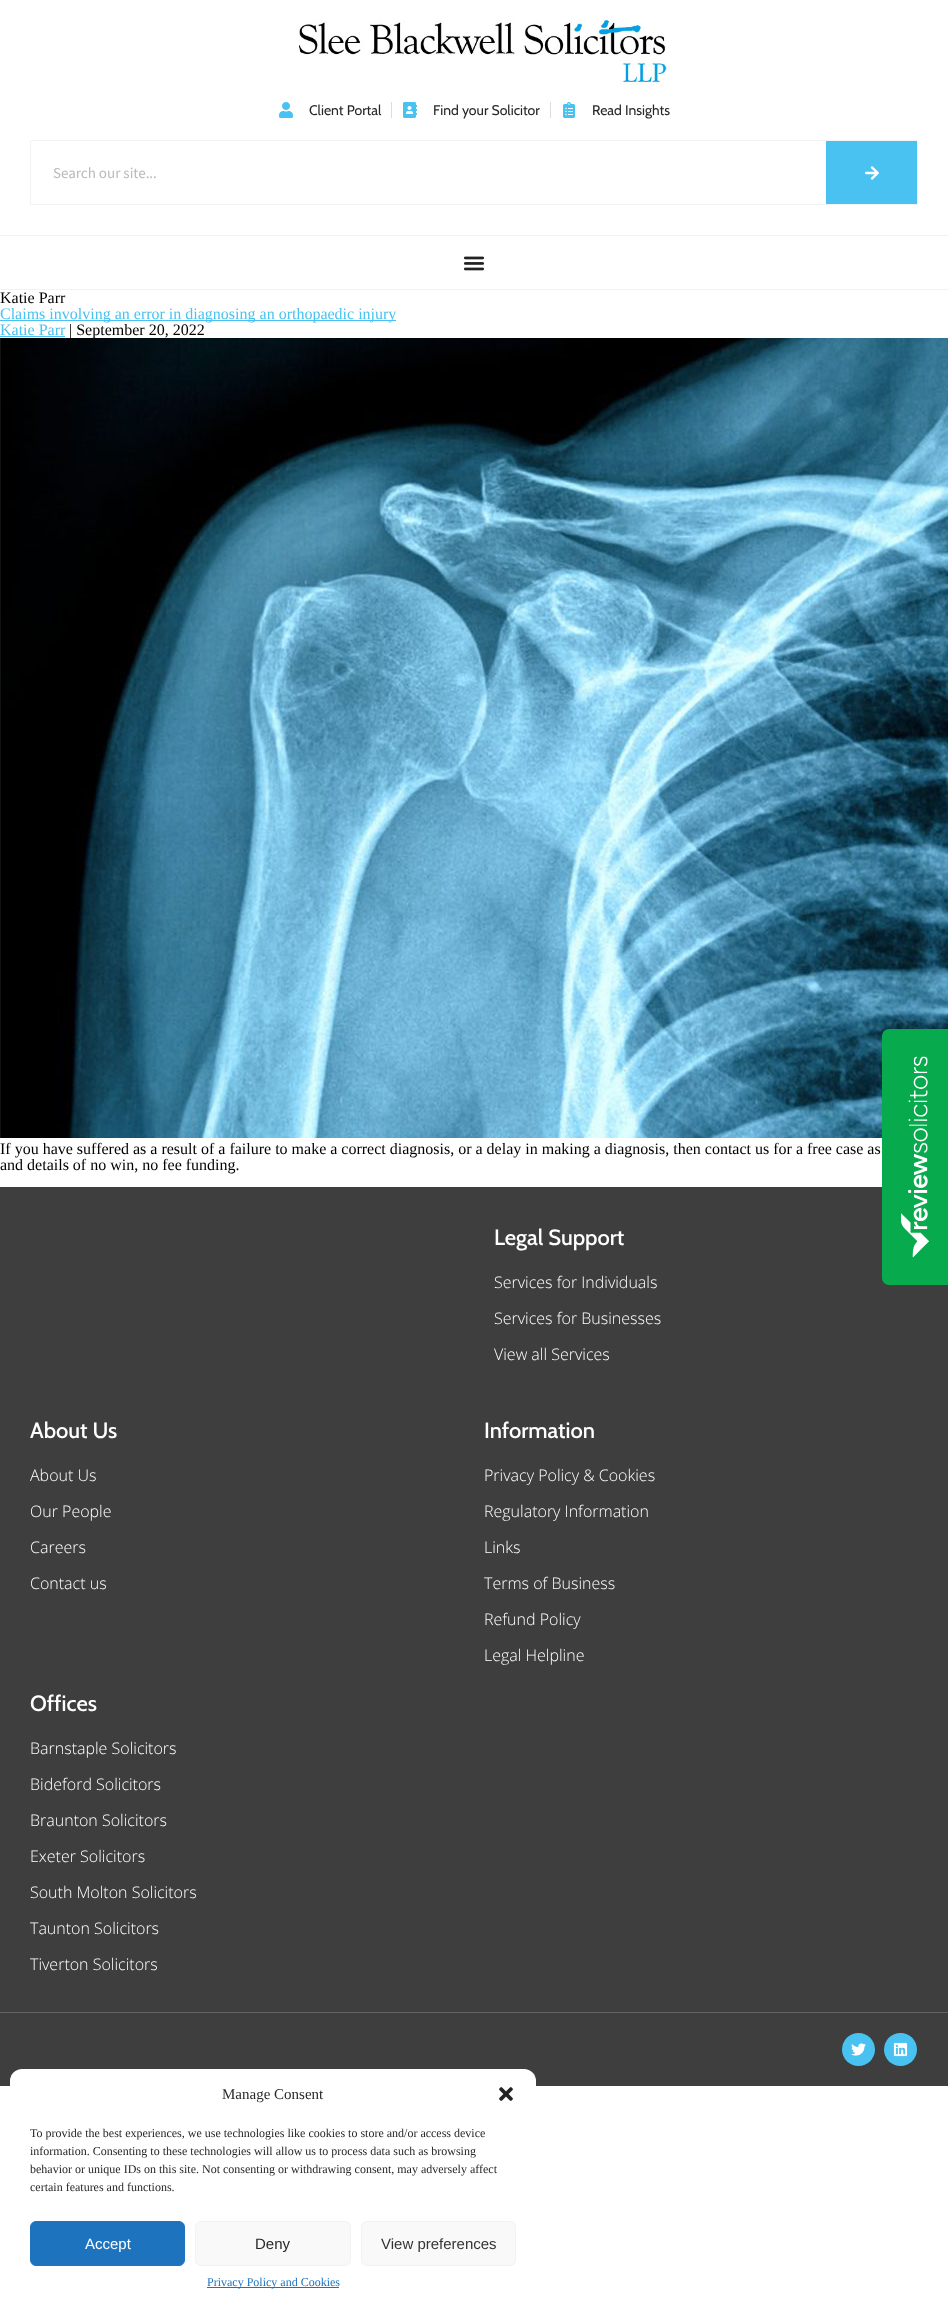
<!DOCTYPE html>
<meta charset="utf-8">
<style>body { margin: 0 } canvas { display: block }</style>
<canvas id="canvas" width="948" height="2313"></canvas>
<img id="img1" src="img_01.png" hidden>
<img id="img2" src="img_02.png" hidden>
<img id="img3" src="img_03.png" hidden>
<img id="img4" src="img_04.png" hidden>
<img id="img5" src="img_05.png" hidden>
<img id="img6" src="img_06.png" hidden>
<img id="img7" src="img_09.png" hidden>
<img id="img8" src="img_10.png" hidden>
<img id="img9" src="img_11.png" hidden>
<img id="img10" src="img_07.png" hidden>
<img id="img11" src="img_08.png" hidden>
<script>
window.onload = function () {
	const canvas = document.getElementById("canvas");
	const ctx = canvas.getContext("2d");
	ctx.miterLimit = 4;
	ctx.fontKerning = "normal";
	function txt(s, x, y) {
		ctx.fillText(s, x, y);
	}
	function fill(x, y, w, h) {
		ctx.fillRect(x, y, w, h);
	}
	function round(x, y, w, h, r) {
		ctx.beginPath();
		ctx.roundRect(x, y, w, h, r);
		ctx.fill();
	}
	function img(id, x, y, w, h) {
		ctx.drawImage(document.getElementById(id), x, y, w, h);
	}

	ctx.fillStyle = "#FFFFFF";
	fill(0, 0, 948, 2313);
	img("img1", 299, 20, 370, 65);
	img("img2", 279, 102, 14, 16);
	ctx.fillStyle = "#DDDDDD";
	fill(391, 102, 1, 16);
	img("img3", 403, 102, 14, 16);
	fill(550, 102, 1, 16);
	img("img4", 563, 102, 12, 16);
	ctx.beginPath();
	ctx.roundRect(30.5, 140.5, 887, 64, 0.5);
	ctx.strokeStyle = "#F2F2F2";
	ctx.stroke();
	ctx.fillStyle = "#49C2F1";
	fill(826, 141, 91, 63);
	img("img5", 865, 166, 14, 14);
	ctx.fillStyle = "#F2F2F2";
	fill(0, 235, 948, 1);
	fill(0, 289, 948, 1);
	img("img6", 463, 256, 22, 15);
	ctx.fillStyle = "#49C2F1";
	fill(0, 320, 396, 1);
	fill(0, 336, 65, 1);
	ctx.fillStyle = "#3E3E3E";
	fill(0, 1187, 948, 825);
	fill(0, 2013, 948, 73);
	ctx.fillStyle = "#636363";
	fill(0, 2012, 948, 1);
	ctx.fillStyle = "#49C2F1";
	ctx.beginPath();
	ctx.arc(858.5, 2049.5, 16.5, 0, Math.PI * 2);
	ctx.fill();
	img("img7", 851, 2043, 15, 13);
	ctx.beginPath();
	ctx.arc(900.5, 2049.5, 16.5, 0, Math.PI * 2);
	ctx.fill();
	img("img8", 893, 2042, 15, 15);
	ctx.fillStyle = "#FFFFFF";
	round(10, 2069, 526, 234, 12);
	img("img9", 499, 2087, 14, 14);
	ctx.fillStyle = "#1E73BE";
	ctx.beginPath();
	ctx.roundRect(30.5, 2221.5, 154, 44, 5.5);
	ctx.fill();
	ctx.strokeStyle = "#1E73BE";
	ctx.stroke();
	ctx.fillStyle = "#F9F9F9";
	ctx.beginPath();
	ctx.roundRect(195.5, 2221.5, 155, 44, 5.5);
	ctx.fill();
	ctx.strokeStyle = "#F2F2F2";
	ctx.stroke();
	ctx.beginPath();
	ctx.roundRect(361.5, 2221.5, 154, 44, 5.5);
	ctx.fill();
	ctx.stroke();
	ctx.fillStyle = "#1E73BE";
	fill(207, 2287, 132, 1);
	ctx.font = "14px Cabin";
	ctx.fillStyle = "#272727";
	txt("Client Portal", 309, 115);
	txt("Find your Solicitor", 433, 115);
	txt("Read Insights", 592, 115);
	ctx.font = "15px Source Sans Pro";
	ctx.fillStyle = "#BABABA";
	txt("Search our site...", 53, 178);
	ctx.font = "16px Liberation Serif";
	ctx.fillStyle = "#000000";
	txt("Katie Parr", 0, 303);
	ctx.fillStyle = "#49C2F1";
	txt("Claims involving an error in diagnosing an orthopaedic injury", 0, 319);
	txt("Katie Parr", 0, 335);
	ctx.fillStyle = "#000000";
	txt("| September 20, 2022", 69, 335);
	img("img10", 0, 338, 948, 800);
	txt("If you have suffered as a result of a failure to make a correct diagnosis, or a delay in making a diagnosis, then contact us for a free case as", 0, 1154);
	txt("and details of no win, no fee funding.", 0, 1170);
	ctx.fillStyle = "#08AA4E";
	ctx.beginPath();
	ctx.roundRect(882, 1029, 66, 256, [7, 0, 0, 7]);
	ctx.fill();
	img("img11", 901, 1056, 28, 202);
	ctx.font = "500 22px Cabin";
	ctx.fillStyle = "#FFFFFF";
	txt("Legal Support", 494, 1245);
	ctx.font = "300 16px Open Sans";
	txt("Services for Individuals", 494, 1288);
	txt("Services for Businesses", 494, 1324);
	txt("View all Services", 494, 1360);
	ctx.font = "500 22px Cabin";
	txt("About Us", 30, 1438);
	ctx.font = "300 16px Open Sans";
	txt("About Us", 30, 1481);
	txt("Our People", 30, 1517);
	txt("Careers", 30, 1553);
	txt("Contact us", 30, 1589);
	ctx.font = "500 22px Cabin";
	txt("Information", 484, 1438);
	ctx.font = "300 16px Open Sans";
	txt("Privacy Policy & Cookies", 484, 1481);
	txt("Regulatory Information", 484, 1517);
	txt("Links", 484, 1553);
	txt("Terms of Business", 484, 1589);
	txt("Refund Policy", 484, 1625);
	txt("Legal Helpline", 484, 1661);
	ctx.font = "500 22px Cabin";
	txt("Offices", 30, 1711);
	ctx.font = "300 16px Open Sans";
	txt("Barnstaple Solicitors", 30, 1754);
	txt("Bideford Solicitors", 30, 1790);
	txt("Braunton Solicitors", 30, 1826);
	txt("Exeter Solicitors", 30, 1862);
	txt("South Molton Solicitors", 30, 1898);
	txt("Taunton Solicitors", 30, 1934);
	txt("Tiverton Solicitors", 30, 1970);
	ctx.font = "15px Liberation Serif";
	ctx.fillStyle = "#272727";
	txt("Manage Consent", 222, 2099);
	ctx.font = "12px Liberation Serif";
	txt("To provide the best experiences, we use technologies like cookies to store and/or access device", 30, 2137);
	txt("information. Consenting to these technologies will allow us to process data such as browsing", 30, 2155);
	txt("behavior or unique IDs on this site. Not consenting or withdrawing consent, may adversely affect", 30, 2173);
	txt("certain features and functions.", 30, 2191);
	ctx.font = "15px Liberation Sans";
	ctx.fillStyle = "#FFFFFF";
	txt("Accept", 85, 2249);
	ctx.fillStyle = "#272727";
	txt("Deny", 255, 2249);
	ctx.fillStyle = "#333333";
	txt("View preferences", 381, 2249);
	ctx.font = "12px Liberation Serif";
	ctx.fillStyle = "#1E73BE";
	txt("Privacy Policy and Cookies", 207, 2286);
};
</script>
